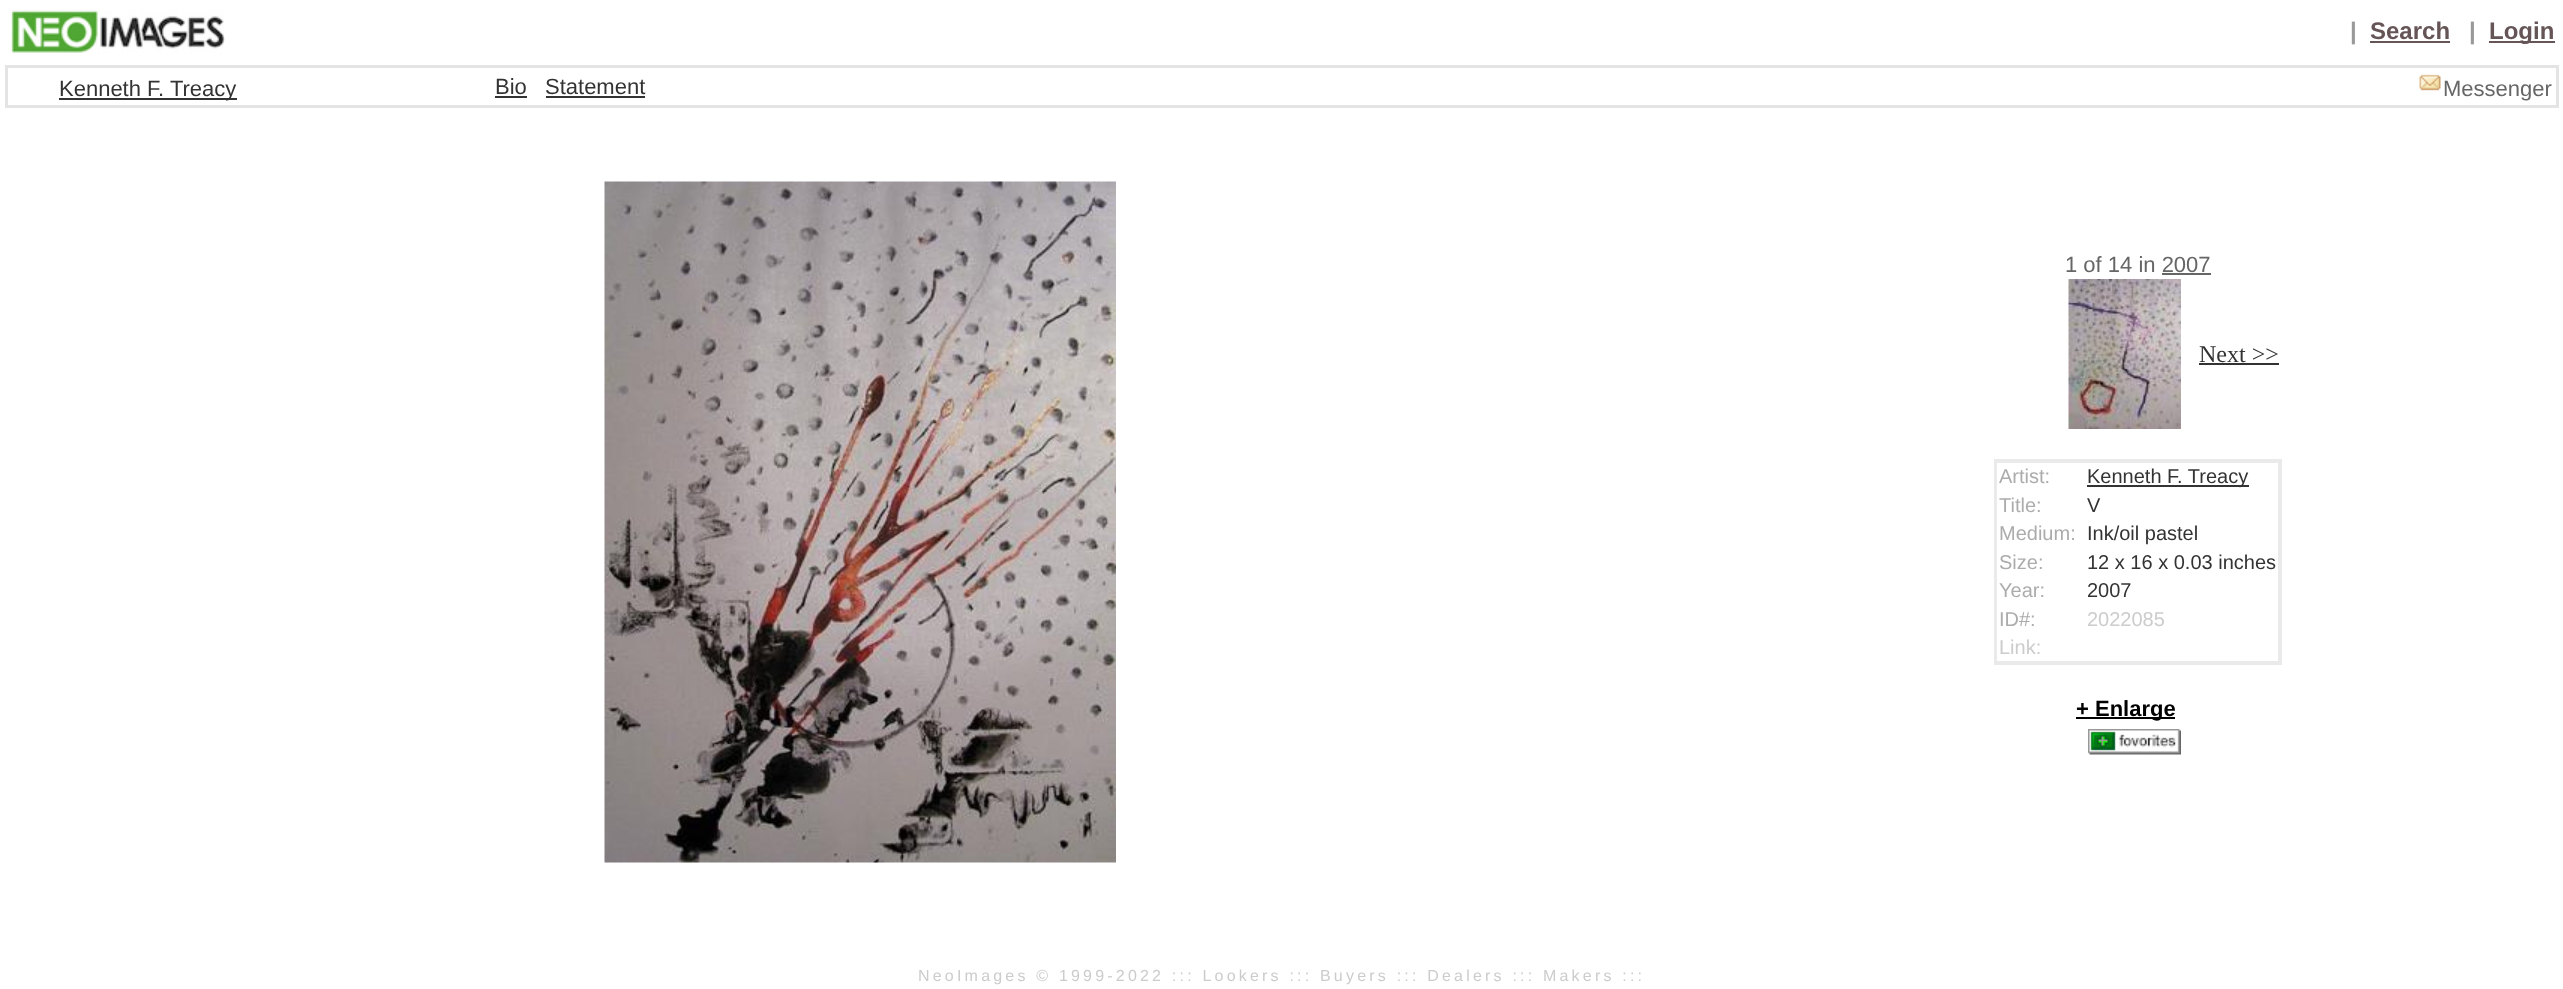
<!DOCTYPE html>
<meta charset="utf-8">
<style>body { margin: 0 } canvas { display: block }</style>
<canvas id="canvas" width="2563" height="989"></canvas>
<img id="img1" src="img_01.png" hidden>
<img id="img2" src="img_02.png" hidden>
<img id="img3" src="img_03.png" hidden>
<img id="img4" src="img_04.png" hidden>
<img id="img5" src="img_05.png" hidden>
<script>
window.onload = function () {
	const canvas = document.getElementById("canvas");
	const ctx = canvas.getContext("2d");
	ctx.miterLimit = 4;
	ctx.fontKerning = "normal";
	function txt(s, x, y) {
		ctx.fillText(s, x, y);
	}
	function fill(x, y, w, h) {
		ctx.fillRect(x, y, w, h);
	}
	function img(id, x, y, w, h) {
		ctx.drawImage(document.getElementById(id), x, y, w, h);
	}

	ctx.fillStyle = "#FFFFFF";
	fill(0, 0, 2563, 989);
	img("img1", 9, 9, 216, 45);
	ctx.fillStyle = "#665557";
	fill(2370, 41, 80, 2);
	fill(2489, 41, 66, 2);
	ctx.strokeStyle = "#E4E4E4";
	ctx.lineWidth = 2;
	ctx.strokeRect(6, 66, 2552, 41);
	ctx.strokeRect(7, 67, 2550, 39);
	ctx.fillStyle = "#333333";
	fill(59, 98, 178, 2);
	fill(495, 96, 32, 2);
	fill(546, 96, 99, 2);
	img("img2", 2419, 74, 22, 17);
	img("img3", 604, 181, 512, 682);
	ctx.fillStyle = "#666666";
	fill(2162, 273, 49, 2);
	img("img4", 2068, 279, 113, 150);
	ctx.fillStyle = "#333333";
	fill(2199, 363, 80, 2);
	ctx.strokeStyle = "#EAEAEA";
	ctx.strokeRect(1995, 460, 286, 204);
	ctx.strokeRect(1996, 462, 283, 200);
	fill(2087, 485, 162, 2);
	ctx.fillStyle = "#000000";
	fill(2076, 717, 99, 2);
	img("img5", 2088, 729, 93, 26);
	ctx.font = "bold 24px Liberation Sans";
	ctx.fillStyle = "#999999";
	txt("|", 2350, 39);
	ctx.fillStyle = "#665557";
	txt("Search", 2370, 39);
	ctx.fillStyle = "#999999";
	txt("|", 2469, 39);
	ctx.fillStyle = "#665557";
	txt("Login", 2489, 39);
	ctx.font = "22px Liberation Sans";
	ctx.fillStyle = "#333333";
	txt("Kenneth F. Treacy", 59, 96);
	txt("Bio", 495, 94);
	txt("Statement", 545, 94);
	ctx.fillStyle = "#666666";
	txt("Messenger", 2443, 96);
	txt("1 of 14 in 2007", 2065, 272);
	ctx.font = "24px Liberation Serif";
	ctx.fillStyle = "#333333";
	txt("Next >>", 2199, 362);
	ctx.font = "20px Liberation Sans";
	ctx.fillStyle = "#ACACAC";
	txt("Artist:", 1999, 483);
	ctx.fillStyle = "#333333";
	txt("Kenneth F. Treacy", 2087, 483);
	ctx.fillStyle = "#ACACAC";
	txt("Title:", 1999, 512);
	ctx.fillStyle = "#333333";
	txt("V", 2087, 512);
	ctx.fillStyle = "#ACACAC";
	txt("Medium:", 1999, 540);
	ctx.fillStyle = "#333333";
	txt("Ink/oil pastel", 2087, 540);
	ctx.fillStyle = "#ACACAC";
	txt("Size:", 1999, 569);
	ctx.fillStyle = "#333333";
	txt("12 x 16 x 0.03 inches", 2087, 569);
	ctx.fillStyle = "#ACACAC";
	txt("Year:", 1999, 597);
	ctx.fillStyle = "#333333";
	txt("2007", 2087, 597);
	ctx.fillStyle = "#ACACAC";
	txt("ID#:", 1999, 626);
	ctx.fillStyle = "#CCCCCC";
	txt("2022085", 2087, 626);
	txt("Link:", 1999, 654);
	ctx.font = "bold 22px Liberation Sans";
	ctx.fillStyle = "#000000";
	txt("+ Enlarge", 2076, 716);
	ctx.letterSpacing = "3.2px";
	ctx.font = "16px Liberation Sans";
	ctx.fillStyle = "#CCCCCC";
	txt("NeoImages © 1999-2022 ::: Lookers ::: Buyers ::: Dealers ::: Makers :::", 918, 981);
};
</script>
